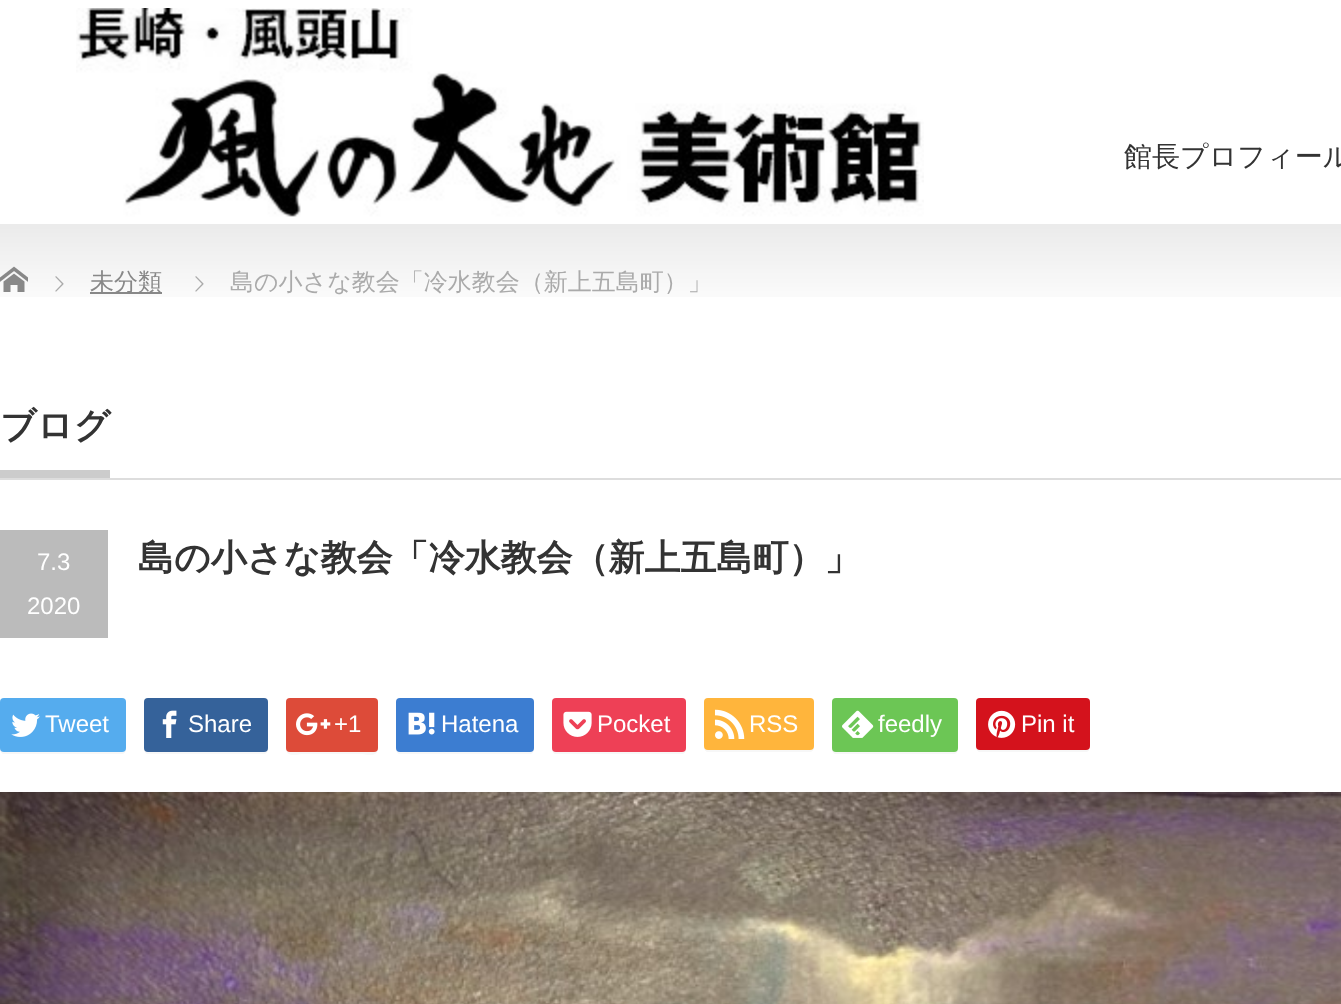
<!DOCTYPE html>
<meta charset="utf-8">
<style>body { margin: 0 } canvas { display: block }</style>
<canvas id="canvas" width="1341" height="1004"></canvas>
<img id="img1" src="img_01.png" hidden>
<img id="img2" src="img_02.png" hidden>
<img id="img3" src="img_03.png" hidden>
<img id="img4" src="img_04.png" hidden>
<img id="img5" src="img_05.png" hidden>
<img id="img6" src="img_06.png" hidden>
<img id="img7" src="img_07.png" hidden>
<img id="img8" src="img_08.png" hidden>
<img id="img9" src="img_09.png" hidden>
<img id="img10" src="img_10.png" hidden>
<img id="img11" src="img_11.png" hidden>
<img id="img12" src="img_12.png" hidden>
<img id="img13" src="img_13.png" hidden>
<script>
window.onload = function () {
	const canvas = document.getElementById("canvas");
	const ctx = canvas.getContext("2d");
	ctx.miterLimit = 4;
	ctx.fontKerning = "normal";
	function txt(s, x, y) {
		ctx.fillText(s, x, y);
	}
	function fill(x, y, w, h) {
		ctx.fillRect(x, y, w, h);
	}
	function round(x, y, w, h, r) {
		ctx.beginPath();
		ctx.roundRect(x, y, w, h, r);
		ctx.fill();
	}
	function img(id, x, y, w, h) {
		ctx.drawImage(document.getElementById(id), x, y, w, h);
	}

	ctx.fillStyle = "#FFFFFF";
	fill(0, 0, 1341, 1004);
	img("img1", 76, 8, 848, 209);
	img("img2", 0, 224, 1341, 73);
	img("img3", 0, 266, 28, 26);
	img("img4", 55, 276, 9, 16);
	ctx.fillStyle = "#888888";
	fill(90, 292, 72, 2);
	img("img4", 195, 276, 9, 16);
	ctx.fillStyle = "#DDDDDD";
	fill(0, 478, 1341, 2);
	ctx.fillStyle = "#CCCCCC";
	fill(0, 470, 110, 8);
	ctx.fillStyle = "#BBBBBB";
	fill(0, 530, 108, 108);
	ctx.fillStyle = "#F7F7F7";
	ctx.beginPath();
	ctx.moveTo(0, 748);
	ctx.lineTo(0, 750);
	ctx.bezierCurveTo(0, 752, 2, 754, 4, 754);
	ctx.lineTo(122, 754);
	ctx.bezierCurveTo(124, 754, 126, 752, 126, 750);
	ctx.lineTo(126, 748);
	ctx.bezierCurveTo(126, 750, 124, 752, 122, 752);
	ctx.lineTo(4, 752);
	ctx.bezierCurveTo(2, 752, 0, 750, 0, 748);
	ctx.closePath();
	ctx.fill();
	ctx.fillStyle = "#55ACEE";
	round(0, 698, 126, 54, 4);
	img("img5", 11, 713, 29, 24);
	ctx.fillStyle = "#F7F7F7";
	ctx.beginPath();
	ctx.moveTo(144, 748);
	ctx.lineTo(144, 750);
	ctx.bezierCurveTo(144, 752, 146, 754, 148, 754);
	ctx.lineTo(264, 754);
	ctx.bezierCurveTo(266, 754, 268, 752, 268, 750);
	ctx.lineTo(268, 748);
	ctx.bezierCurveTo(268, 750, 266, 752, 264, 752);
	ctx.lineTo(148, 752);
	ctx.bezierCurveTo(146, 752, 144, 750, 144, 748);
	ctx.closePath();
	ctx.fill();
	ctx.fillStyle = "#35629A";
	round(144, 698, 124, 54, 4);
	img("img6", 162, 710, 15, 28);
	ctx.fillStyle = "#F7F7F7";
	ctx.beginPath();
	ctx.moveTo(286, 748);
	ctx.bezierCurveTo(286, 758, 296, 754, 304, 754);
	ctx.lineTo(360, 754);
	ctx.bezierCurveTo(368, 754, 378, 758, 378, 748);
	ctx.bezierCurveTo(378, 750, 376, 752, 374, 752);
	ctx.lineTo(290, 752);
	ctx.bezierCurveTo(288, 752, 286, 750, 286, 748);
	ctx.closePath();
	ctx.fill();
	ctx.fillStyle = "#DD4B39";
	round(286, 698, 92, 54, 4);
	img("img7", 296, 713, 35, 23);
	ctx.fillStyle = "#F7F7F7";
	ctx.beginPath();
	ctx.moveTo(396, 748);
	ctx.lineTo(396, 750);
	ctx.bezierCurveTo(396, 752, 398, 754, 400, 754);
	ctx.lineTo(530, 754);
	ctx.bezierCurveTo(532, 754, 534, 752, 534, 750);
	ctx.lineTo(534, 748);
	ctx.bezierCurveTo(534, 750, 532, 752, 530, 752);
	ctx.lineTo(400, 752);
	ctx.bezierCurveTo(398, 752, 396, 750, 396, 748);
	ctx.closePath();
	ctx.fill();
	ctx.fillStyle = "#3C7DD1";
	round(396, 698, 138, 54, 4);
	img("img8", 408, 712, 27, 23);
	ctx.fillStyle = "#F7F7F7";
	ctx.beginPath();
	ctx.moveTo(552, 748);
	ctx.lineTo(552, 750);
	ctx.bezierCurveTo(552, 752, 554, 754, 556, 754);
	ctx.lineTo(682, 754);
	ctx.bezierCurveTo(684, 754, 686, 752, 686, 750);
	ctx.lineTo(686, 748);
	ctx.bezierCurveTo(686, 750, 684, 752, 682, 752);
	ctx.lineTo(556, 752);
	ctx.bezierCurveTo(554, 752, 552, 750, 552, 748);
	ctx.closePath();
	ctx.fill();
	ctx.fillStyle = "#EE4056";
	round(552, 698, 134, 54, 4);
	img("img9", 563, 711, 29, 26);
	ctx.fillStyle = "#F7F7F7";
	ctx.beginPath();
	ctx.moveTo(704, 746);
	ctx.lineTo(704, 748);
	ctx.bezierCurveTo(704, 750, 706, 752, 708, 752);
	ctx.lineTo(810, 752);
	ctx.bezierCurveTo(812, 752, 814, 750, 814, 748);
	ctx.lineTo(814, 746);
	ctx.bezierCurveTo(814, 748, 812, 750, 810, 750);
	ctx.lineTo(708, 750);
	ctx.bezierCurveTo(706, 750, 704, 748, 704, 746);
	ctx.closePath();
	ctx.fill();
	ctx.fillStyle = "#FFB53C";
	round(704, 698, 110, 52, 4);
	img("img10", 714, 709, 31, 30);
	ctx.fillStyle = "#F7F7F7";
	ctx.beginPath();
	ctx.moveTo(832, 748);
	ctx.lineTo(832, 750);
	ctx.bezierCurveTo(832, 752, 834, 754, 836, 754);
	ctx.lineTo(954, 754);
	ctx.bezierCurveTo(956, 754, 958, 752, 958, 750);
	ctx.lineTo(958, 748);
	ctx.bezierCurveTo(958, 750, 956, 752, 954, 752);
	ctx.lineTo(836, 752);
	ctx.bezierCurveTo(834, 752, 832, 750, 832, 748);
	ctx.closePath();
	ctx.fill();
	ctx.fillStyle = "#6CC655";
	round(832, 698, 126, 54, 4);
	img("img11", 842, 710, 32, 28);
	ctx.fillStyle = "#F7F7F7";
	ctx.beginPath();
	ctx.moveTo(976, 746);
	ctx.lineTo(976, 748);
	ctx.bezierCurveTo(976, 750, 978, 752, 980, 752);
	ctx.lineTo(1086, 752);
	ctx.bezierCurveTo(1088, 752, 1090, 750, 1090, 748);
	ctx.lineTo(1090, 746);
	ctx.bezierCurveTo(1090, 748, 1088, 750, 1086, 750);
	ctx.lineTo(980, 750);
	ctx.bezierCurveTo(978, 750, 976, 748, 976, 746);
	ctx.closePath();
	ctx.fill();
	ctx.fillStyle = "#D4121C";
	round(976, 698, 114, 52, 4);
	img("img12", 988, 710, 28, 28);
	img("img13", 0, 792, 1341, 212);
	ctx.font = "500 28px WenQuanYi Zen Hei";
	ctx.fillStyle = "#333333";
	txt("館長プロフィール", 1124, 166);
	ctx.font = "500 24px WenQuanYi Zen Hei";
	ctx.fillStyle = "#888888";
	txt("未分類", 90, 290);
	ctx.fillStyle = "#AAAAAA";
	txt("島の小さな教会「冷水教会（新上五島町）」", 230, 290);
	ctx.font = "bold 36px WenQuanYi Zen Hei";
	ctx.fillStyle = "#333333";
	txt("ブログ", 0, 438);
	ctx.font = "24px Liberation Sans";
	ctx.fillStyle = "#FFFFFF";
	txt("7.3", 37, 570);
	txt("2020", 27, 614);
	ctx.font = "bold 36px WenQuanYi Zen Hei";
	ctx.fillStyle = "#333333";
	txt("島の小さな教会「冷水教会（新上五島町）」", 138, 570);
	ctx.font = "24px Liberation Sans";
	ctx.fillStyle = "#FFFFFF";
	txt("Tweet", 45, 732);
	txt("Share", 188, 732);
	txt("+1", 334, 732);
	txt("Hatena", 441, 732);
	txt("Pocket", 597, 732);
	txt("RSS", 749, 732);
	txt("feedly", 878, 732);
	txt("Pin it", 1021, 732);
};
</script>
